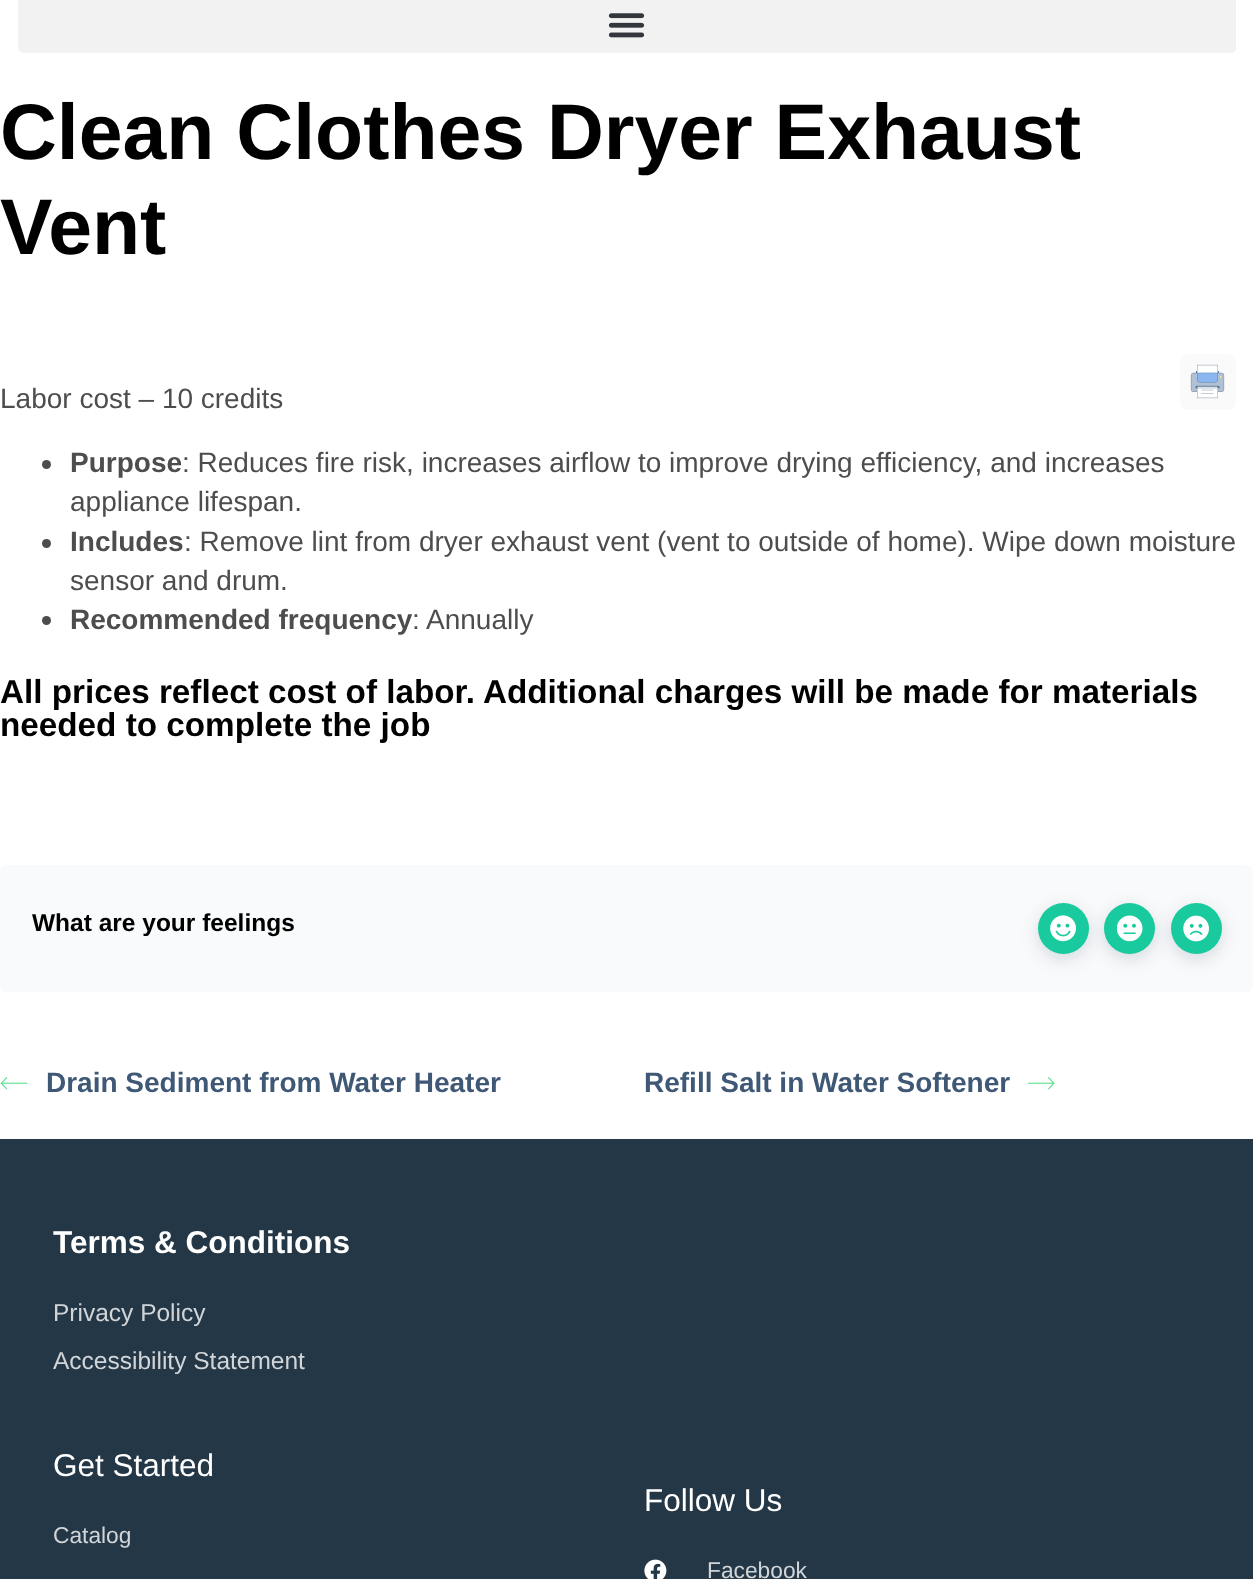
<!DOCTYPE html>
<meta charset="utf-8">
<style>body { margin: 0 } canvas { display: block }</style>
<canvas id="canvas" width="1253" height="1579"></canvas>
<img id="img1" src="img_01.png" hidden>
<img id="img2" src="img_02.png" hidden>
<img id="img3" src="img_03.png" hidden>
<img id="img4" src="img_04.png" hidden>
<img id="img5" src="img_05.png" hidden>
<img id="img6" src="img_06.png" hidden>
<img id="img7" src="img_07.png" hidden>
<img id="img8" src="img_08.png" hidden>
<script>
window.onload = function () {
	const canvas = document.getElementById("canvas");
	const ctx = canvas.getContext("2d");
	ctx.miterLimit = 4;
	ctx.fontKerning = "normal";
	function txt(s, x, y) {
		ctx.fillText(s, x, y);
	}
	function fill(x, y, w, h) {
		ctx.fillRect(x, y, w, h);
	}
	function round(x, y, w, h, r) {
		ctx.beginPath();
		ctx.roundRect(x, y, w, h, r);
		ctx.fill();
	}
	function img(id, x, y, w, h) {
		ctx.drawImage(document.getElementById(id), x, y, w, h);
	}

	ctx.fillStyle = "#FFFFFF";
	fill(0, 0, 1253, 1579);
	ctx.fillStyle = "#F2F2F2";
	round(18, -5, 1218, 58, 5);
	img("img1", 608, 13, 37, 25);
	ctx.fillStyle = "#FAFAFA";
	round(1180, 354, 56, 56, 9);
	img("img2", 1190, 364, 35, 35);
	ctx.fillStyle = "#4D4D4D";
	ctx.beginPath();
	ctx.arc(46.5, 464.5, 4.5, 0, Math.PI * 2);
	ctx.fill();
	ctx.beginPath();
	ctx.arc(46.5, 543.5, 4.5, 0, Math.PI * 2);
	ctx.fill();
	ctx.beginPath();
	ctx.arc(46.5, 620.5, 4.5, 0, Math.PI * 2);
	ctx.fill();
	ctx.fillStyle = "#F9FAFB";
	round(0, 865, 1253, 127, 7);
	ctx.fillStyle = "rgba(3, 29, 60, 0.15)";
	ctx.filter = "blur(9px)";
	ctx.beginPath();
	ctx.roundRect(1038, 908, 51, 51, 25.5);
	ctx.fill();
	ctx.filter = "none";
	ctx.fillStyle = "#19CA9E";
	ctx.beginPath();
	ctx.arc(1063.5, 928.5, 25.5, 0, Math.PI * 2);
	ctx.fill();
	img("img3", 1050, 915, 26, 27);
	ctx.fillStyle = "rgba(3, 29, 60, 0.15)";
	ctx.filter = "blur(9px)";
	ctx.beginPath();
	ctx.roundRect(1104, 908, 51, 51, 25.5);
	ctx.fill();
	ctx.filter = "none";
	ctx.fillStyle = "#19CA9E";
	ctx.beginPath();
	ctx.arc(1129.5, 928.5, 25.5, 0, Math.PI * 2);
	ctx.fill();
	img("img4", 1117, 915, 26, 27);
	ctx.fillStyle = "rgba(3, 29, 60, 0.15)";
	ctx.filter = "blur(9px)";
	ctx.beginPath();
	ctx.roundRect(1171, 908, 51, 51, 25.5);
	ctx.fill();
	ctx.filter = "none";
	ctx.fillStyle = "#19CA9E";
	ctx.beginPath();
	ctx.arc(1196.5, 928.5, 25.5, 0, Math.PI * 2);
	ctx.fill();
	img("img5", 1183, 915, 26, 27);
	img("img6", 0, 1077, 28, 13);
	img("img7", 1027, 1077, 28, 13);
	ctx.fillStyle = "#243746";
	fill(0, 1139, 1253, 440);
	img("img8", 644, 1559, 23, 20);
	ctx.font = "bold 78.75px Liberation Sans";
	ctx.fillStyle = "#000000";
	txt("Clean Clothes Dryer Exhaust", 0, 159);
	txt("Vent", 0, 254);
	ctx.font = "28px Liberation Sans";
	ctx.fillStyle = "#4D4D4D";
	txt("Labor cost – 10 credits", 0, 408);
	ctx.font = "bold 28px Liberation Sans";
	txt("Purpose", 70, 472);
	ctx.font = "28px Liberation Sans";
	txt(": Reduces fire risk, increases airflow to improve drying efficiency, and increases", 182, 472);
	txt("appliance lifespan.", 70, 511);
	ctx.font = "bold 28px Liberation Sans";
	txt("Includes", 70, 551);
	ctx.font = "28px Liberation Sans";
	txt(": Remove lint from dryer exhaust vent (vent to outside of home). Wipe down moisture", 184, 551);
	txt("sensor and drum.", 70, 590);
	ctx.font = "bold 28px Liberation Sans";
	txt("Recommended frequency", 70, 629);
	ctx.font = "28px Liberation Sans";
	txt(": Annually", 412, 629);
	ctx.font = "bold 33.25px Liberation Sans";
	ctx.fillStyle = "#000000";
	txt("All prices reflect cost of labor. Additional charges will be made for materials", 0, 703);
	txt("needed to complete the job", 0, 736);
	ctx.font = "bold 24.5px Liberation Sans";
	txt("What are your feelings", 32, 931);
	ctx.font = "bold 28px Liberation Sans";
	ctx.fillStyle = "#3F5876";
	txt("Drain Sediment from Water Heater", 46, 1092);
	txt("Refill Salt in Water Softener", 644, 1092);
	ctx.font = "bold 31.5px Liberation Sans";
	ctx.fillStyle = "#FFFFFF";
	txt("Terms & Conditions", 53, 1253);
	ctx.font = "24.5px Liberation Sans";
	ctx.fillStyle = "#D1D5D8";
	txt("Privacy Policy", 53, 1321);
	txt("Accessibility Statement", 53, 1369);
	ctx.font = "31.5px Liberation Sans";
	ctx.fillStyle = "#FFFFFF";
	txt("Get Started", 53, 1476);
	ctx.font = "22.75px Liberation Sans";
	ctx.fillStyle = "#D1D5D8";
	txt("Catalog", 53, 1543);
	ctx.font = "31.5px Liberation Sans";
	ctx.fillStyle = "#FFFFFF";
	txt("Follow Us", 644, 1511);
	ctx.font = "22.75px Liberation Sans";
	ctx.fillStyle = "#D1D5D8";
	txt("Facebook", 707, 1578);
};
</script>
